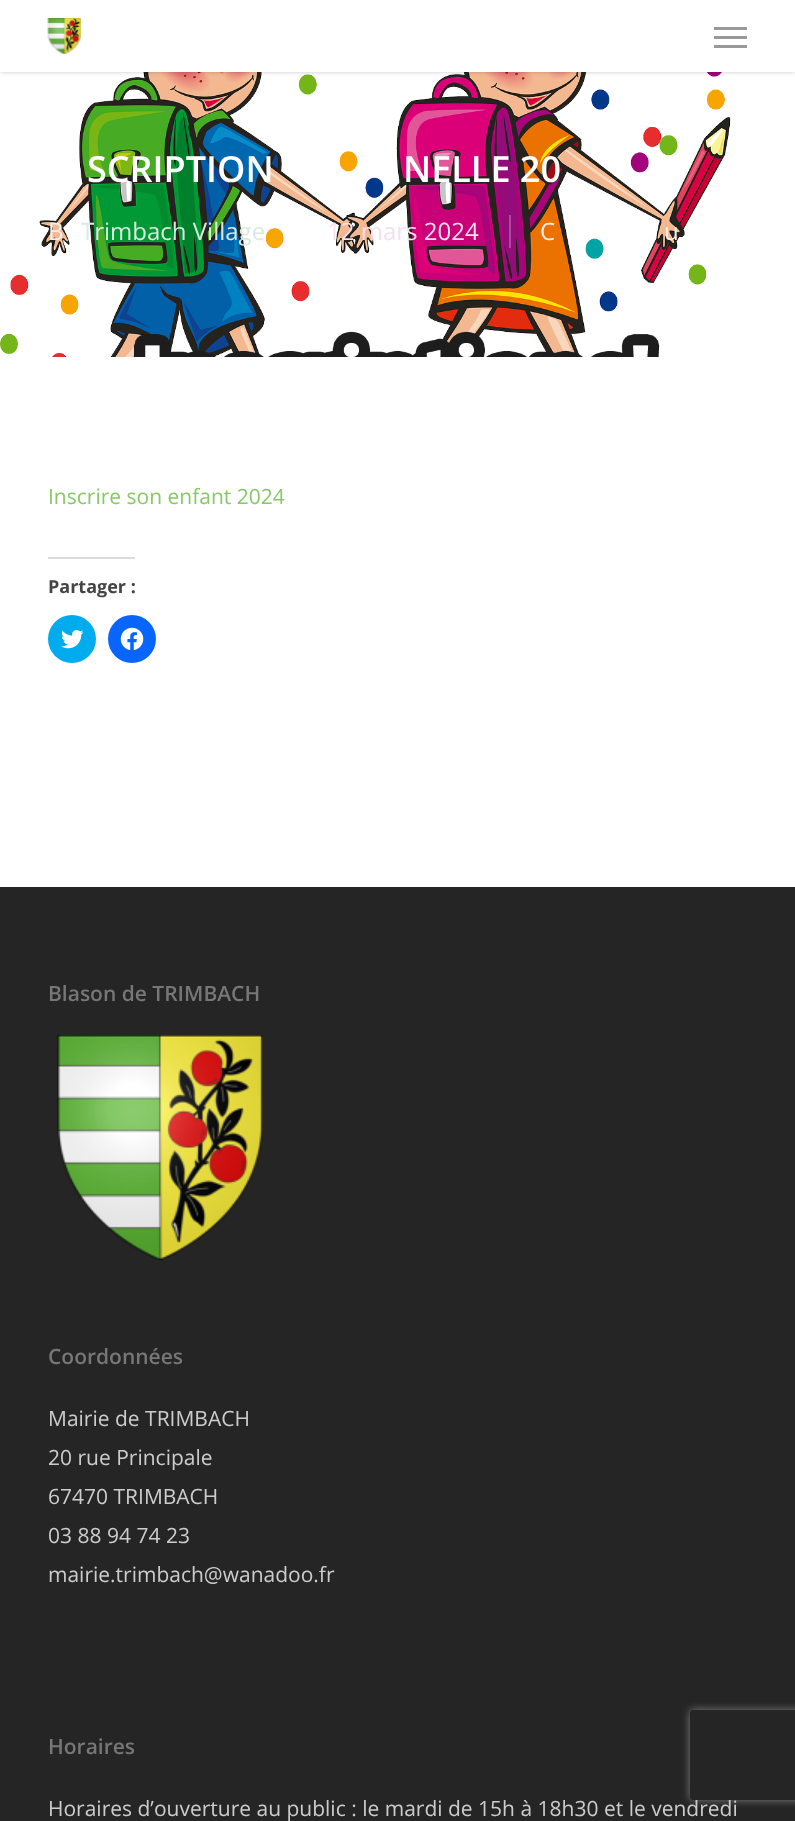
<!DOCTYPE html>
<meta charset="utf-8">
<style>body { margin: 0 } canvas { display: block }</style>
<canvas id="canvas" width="795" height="1821"></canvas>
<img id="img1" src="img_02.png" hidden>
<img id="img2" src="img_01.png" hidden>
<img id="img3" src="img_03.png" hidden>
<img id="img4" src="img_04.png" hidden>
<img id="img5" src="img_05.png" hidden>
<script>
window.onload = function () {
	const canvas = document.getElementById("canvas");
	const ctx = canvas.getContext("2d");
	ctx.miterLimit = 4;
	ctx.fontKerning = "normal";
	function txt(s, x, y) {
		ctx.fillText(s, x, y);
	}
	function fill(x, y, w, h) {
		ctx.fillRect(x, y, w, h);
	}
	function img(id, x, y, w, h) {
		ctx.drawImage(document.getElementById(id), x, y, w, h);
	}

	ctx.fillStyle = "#FFFFFF";
	fill(0, 0, 795, 1821);
	img("img1", 0, 72, 795, 285);
	ctx.fillStyle = "rgba(0, 0, 0, 0.22)";
	ctx.filter = "blur(2px)";
	ctx.beginPath();
	ctx.rect(0, 0, 795, 72);
	ctx.fill();
	ctx.filter = "none";
	ctx.fillStyle = "#FFFFFF";
	fill(0, 0, 795, 72);
	img("img2", 47, 18, 34, 36);
	ctx.fillStyle = "#999999";
	fill(714, 27, 33, 3);
	fill(714, 45, 33, 3);
	fill(714, 36, 33, 3);
	ctx.fillStyle = "#AE499B";
	fill(509, 215, 2, 33);
	ctx.fillStyle = "#DCDCDE";
	fill(48, 557, 87, 2);
	ctx.fillStyle = "#00ACEE";
	ctx.beginPath();
	ctx.arc(72, 639, 24, 0, Math.PI * 2);
	ctx.fill();
	img("img3", 61, 630, 23, 19);
	ctx.fillStyle = "#0866FF";
	ctx.beginPath();
	ctx.arc(132, 639, 24, 0, Math.PI * 2);
	ctx.fill();
	img("img4", 120, 627, 24, 23);
	ctx.fillStyle = "#252525";
	fill(0, 887, 795, 934);
	img("img5", 57, 1035, 206, 225);
	ctx.save();
	ctx.beginPath();
	ctx.moveTo(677, 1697);
	ctx.lineTo(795, 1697);
	ctx.lineTo(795, 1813);
	ctx.lineTo(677, 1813);
	ctx.closePath();
	ctx.moveTo(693, 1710);
	ctx.lineTo(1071, 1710);
	ctx.bezierCurveTo(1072.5, 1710, 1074, 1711.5, 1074, 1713);
	ctx.lineTo(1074, 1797);
	ctx.bezierCurveTo(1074, 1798.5, 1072.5, 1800, 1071, 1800);
	ctx.lineTo(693, 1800);
	ctx.bezierCurveTo(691.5, 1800, 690, 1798.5, 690, 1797);
	ctx.lineTo(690, 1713);
	ctx.bezierCurveTo(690, 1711.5, 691.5, 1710, 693, 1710);
	ctx.closePath();
	ctx.clip("evenodd");
	ctx.fillStyle = "#808080";
	ctx.filter = "blur(4px)";
	ctx.beginPath();
	ctx.roundRect(690, 1710, 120, 90, 3);
	ctx.fill();
	ctx.filter = "none";
	ctx.restore();
	ctx.font = "600 36px Open Sans";
	ctx.fillStyle = "#FFFFFF";
	txt("SCRIPTION", 87, 182);
	txt("NELLE 20", 403, 182);
	ctx.font = "24px Open Sans";
	ctx.fillStyle = "#F5EFEC";
	txt("B", 48, 240);
	ctx.fillStyle = "#D9EAE1";
	txt("Trimbach Village", 81, 240);
	ctx.fillStyle = "#F5E0EB";
	txt("12 mars 2024", 327, 240);
	ctx.fillStyle = "#F5EFEC";
	txt("C", 540, 240);
	txt("u", 664, 240);
	ctx.font = "21px Open Sans";
	ctx.fillStyle = "#87C969";
	txt("Inscrire son enfant 2024", 48, 504);
	ctx.font = "bold 18px Open Sans";
	ctx.fillStyle = "#444444";
	txt("Partager :", 48, 593);
	ctx.font = "600 21px Open Sans";
	ctx.fillStyle = "#777777";
	txt("Blason de TRIMBACH", 48, 1001);
	txt("Coordonnées", 48, 1364);
	ctx.font = "21px Open Sans";
	ctx.fillStyle = "#CCCCCC";
	txt("Mairie de TRIMBACH", 48, 1426);
	txt("20 rue Principale", 48, 1465);
	txt("67470 TRIMBACH", 48, 1504);
	txt("03 88 94 74 23", 48, 1543);
	txt("mairie.trimbach@wanadoo.fr", 48, 1582);
	ctx.font = "600 21px Open Sans";
	ctx.fillStyle = "#777777";
	txt("Horaires", 48, 1754);
	ctx.font = "21px Open Sans";
	ctx.fillStyle = "#CCCCCC";
	txt("Horaires d’ouverture au public : le mardi de 15h à 18h30 et le vendredi", 48, 1816);
};
</script>
